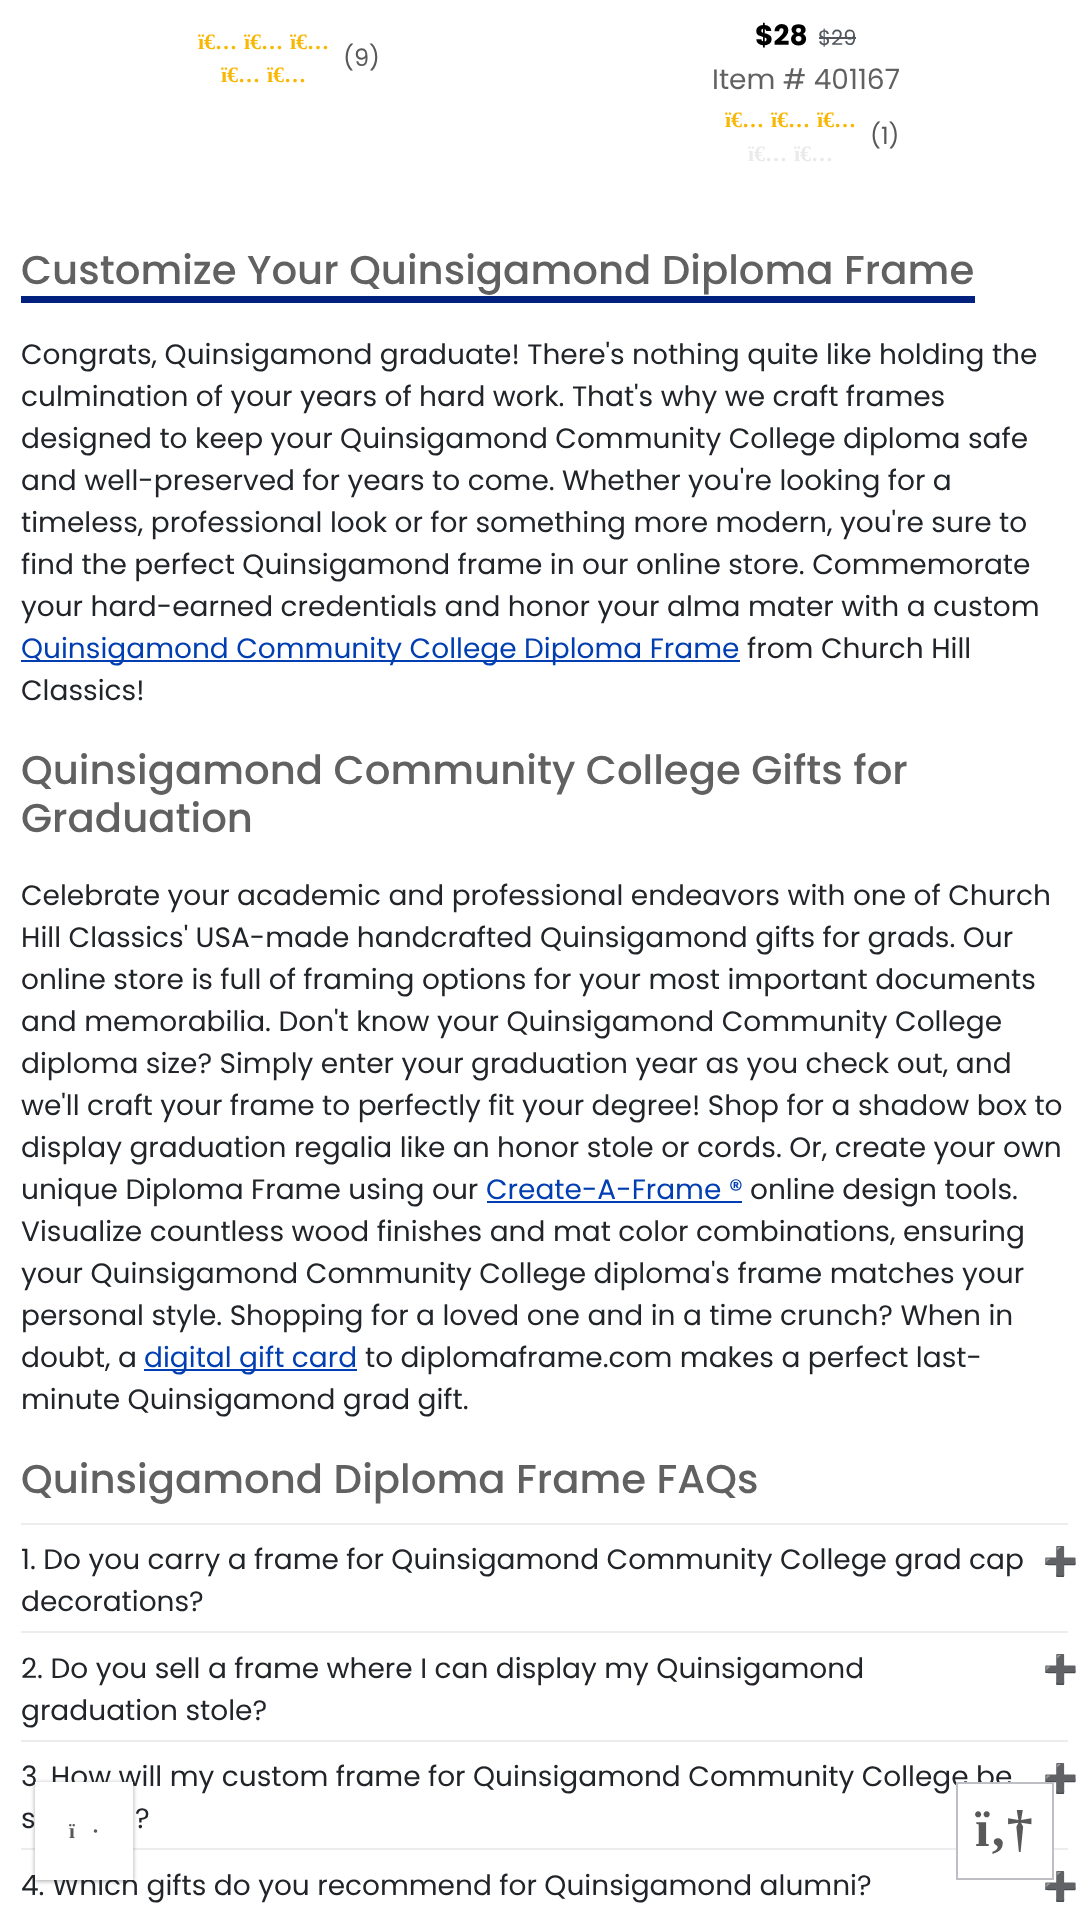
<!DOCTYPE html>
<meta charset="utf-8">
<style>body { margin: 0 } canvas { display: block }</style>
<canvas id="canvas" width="1087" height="1914"></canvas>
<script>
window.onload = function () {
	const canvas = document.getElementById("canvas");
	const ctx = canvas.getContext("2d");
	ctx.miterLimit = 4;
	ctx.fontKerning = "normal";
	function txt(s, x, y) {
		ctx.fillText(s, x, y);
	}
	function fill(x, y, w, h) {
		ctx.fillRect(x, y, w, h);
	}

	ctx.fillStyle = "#FFFFFF";
	fill(0, 0, 1087, 1914);
	ctx.fillStyle = "#51575D";
	fill(819, 37, 37, 2);
	ctx.fillStyle = "#00227E";
	fill(21, 296, 954, 7);
	ctx.fillStyle = "#003EB2";
	fill(21, 660, 719, 2);
	fill(487, 1201, 255, 2);
	fill(144, 1369, 213, 2);
	ctx.fillStyle = "#ECEDEF";
	fill(21, 1523, 1047, 2);
	fill(21, 1631, 1047, 2);
	fill(21, 1740, 1047, 2);
	fill(21, 1848, 1047, 2);
	ctx.fillStyle = "rgba(0, 0, 0, 0.24)";
	ctx.filter = "blur(2px)";
	ctx.beginPath();
	ctx.rect(35, 1783, 98, 98);
	ctx.fill();
	ctx.filter = "none";
	ctx.fillStyle = "rgba(0, 0, 0, 0.12)";
	ctx.filter = "blur(2.5px)";
	ctx.beginPath();
	ctx.rect(35, 1783, 98, 98);
	ctx.fill();
	ctx.filter = "none";
	ctx.font = "bold 22px Liberation Serif";
	ctx.fillStyle = "#F8B704";
	txt("ï€…", 198, 49);
	txt("ï€…", 244, 49);
	txt("ï€…", 290, 49);
	txt("ï€…", 221, 82);
	txt("ï€…", 267, 82);
	ctx.font = "24px Poppins";
	ctx.fillStyle = "#595959";
	txt("(9)", 343, 66);
	ctx.font = "bold 28px Poppins";
	ctx.fillStyle = "#000000";
	txt("$28", 755, 45);
	ctx.font = "21px Poppins";
	ctx.fillStyle = "#51575D";
	txt("$29", 818, 45);
	ctx.font = "28px Poppins";
	ctx.fillStyle = "#616161";
	txt("Item # 401167", 712, 89);
	ctx.font = "bold 22px Liberation Serif";
	ctx.fillStyle = "#F8B704";
	txt("ï€…", 725, 127);
	txt("ï€…", 771, 127);
	txt("ï€…", 817, 127);
	ctx.fillStyle = "#EAEAEA";
	txt("ï€…", 748, 161);
	txt("ï€…", 794, 161);
	ctx.font = "24px Poppins";
	ctx.fillStyle = "#595959";
	txt("(1)", 870, 144);
	ctx.font = "500 40.25px Poppins";
	ctx.fillStyle = "#616161";
	txt("Customize Your Quinsigamond Diploma Frame", 21, 284);
	ctx.font = "28px Poppins";
	ctx.fillStyle = "#212529";
	txt("Congrats, Quinsigamond graduate! There's nothing quite like holding the", 21, 364);
	txt("culmination of your years of hard work. That's why we craft frames", 21, 406);
	txt("designed to keep your Quinsigamond Community College diploma safe", 21, 448);
	txt("and well-preserved for years to come. Whether you're looking for a", 21, 490);
	txt("timeless, professional look or for something more modern, you're sure to", 21, 532);
	txt("find the perfect Quinsigamond frame in our online store. Commemorate", 21, 574);
	txt("your hard-earned credentials and honor your alma mater with a custom", 21, 616);
	ctx.fillStyle = "#003EB2";
	txt("Quinsigamond Community College Diploma Frame", 21, 658);
	ctx.fillStyle = "#212529";
	txt("from Church Hill", 747, 658);
	txt("Classics!", 21, 700);
	ctx.font = "500 40.25px Poppins";
	ctx.fillStyle = "#616161";
	txt("Quinsigamond Community College Gifts for", 21, 784);
	txt("Graduation", 21, 832);
	ctx.font = "28px Poppins";
	ctx.fillStyle = "#212529";
	txt("Celebrate your academic and professional endeavors with one of Church", 21, 905);
	txt("Hill Classics' USA-made handcrafted Quinsigamond gifts for grads. Our", 21, 947);
	txt("online store is full of framing options for your most important documents", 21, 989);
	txt("and memorabilia. Don't know your Quinsigamond Community College", 21, 1031);
	txt("diploma size? Simply enter your graduation year as you check out, and", 21, 1073);
	txt("we'll craft your frame to perfectly fit your degree! Shop for a shadow box to", 21, 1115);
	txt("display graduation regalia like an honor stole or cords. Or, create your own", 21, 1157);
	txt("unique Diploma Frame using our", 21, 1199);
	ctx.fillStyle = "#003EB2";
	txt("Create-A-Frame ®", 486, 1199);
	ctx.fillStyle = "#212529";
	txt("online design tools.", 750, 1199);
	txt("Visualize countless wood finishes and mat color combinations, ensuring", 21, 1241);
	txt("your Quinsigamond Community College diploma's frame matches your", 21, 1283);
	txt("personal style. Shopping for a loved one and in a time crunch? When in", 21, 1325);
	txt("doubt, a", 21, 1367);
	ctx.fillStyle = "#003EB2";
	txt("digital gift card", 144, 1367);
	ctx.fillStyle = "#212529";
	txt("to diplomaframe.com makes a perfect last-", 365, 1367);
	txt("minute Quinsigamond grad gift.", 21, 1409);
	ctx.font = "500 40.25px Poppins";
	ctx.fillStyle = "#616161";
	txt("Quinsigamond Diploma Frame FAQs", 21, 1493);
	ctx.font = "28px Poppins";
	ctx.fillStyle = "#212529";
	txt("1. Do you carry a frame for Quinsigamond Community College grad cap", 21, 1569);
	ctx.font = "100 28px Noto Sans";
	txt("➕", 1043, 1571);
	ctx.font = "28px Poppins";
	txt("decorations?", 21, 1611);
	txt("2. Do you sell a frame where I can display my Quinsigamond", 21, 1678);
	ctx.font = "100 28px Noto Sans";
	txt("➕", 1043, 1679);
	ctx.font = "28px Poppins";
	txt("graduation stole?", 21, 1720);
	txt("3. How will my custom frame for Quinsigamond Community College be", 21, 1786);
	ctx.font = "100 28px Noto Sans";
	txt("➕", 1043, 1788);
	ctx.font = "28px Poppins";
	txt("s", 21, 1828);
	txt("?", 135, 1828);
	txt("4. Which gifts do you recommend for Quinsigamond alumni?", 21, 1895);
	ctx.font = "100 28px Noto Sans";
	txt("➕", 1043, 1896);
	ctx.fillStyle = "#FFFFFF";
	fill(35, 1782, 98, 98);
	ctx.font = "bold 21px Liberation Serif";
	ctx.fillStyle = "#595959";
	txt("ï", 69, 1838);
	txt("·", 92, 1838);
	ctx.fillStyle = "#FFFFFF";
	ctx.beginPath();
	ctx.rect(957, 1783, 96, 96);
	ctx.fill();
	ctx.strokeStyle = "#BDBFC5";
	ctx.lineWidth = 2;
	ctx.stroke();
	ctx.font = "bold 52px Liberation Serif";
	ctx.fillStyle = "#595959";
	txt("ï‚†", 975, 1846);
};
</script>
